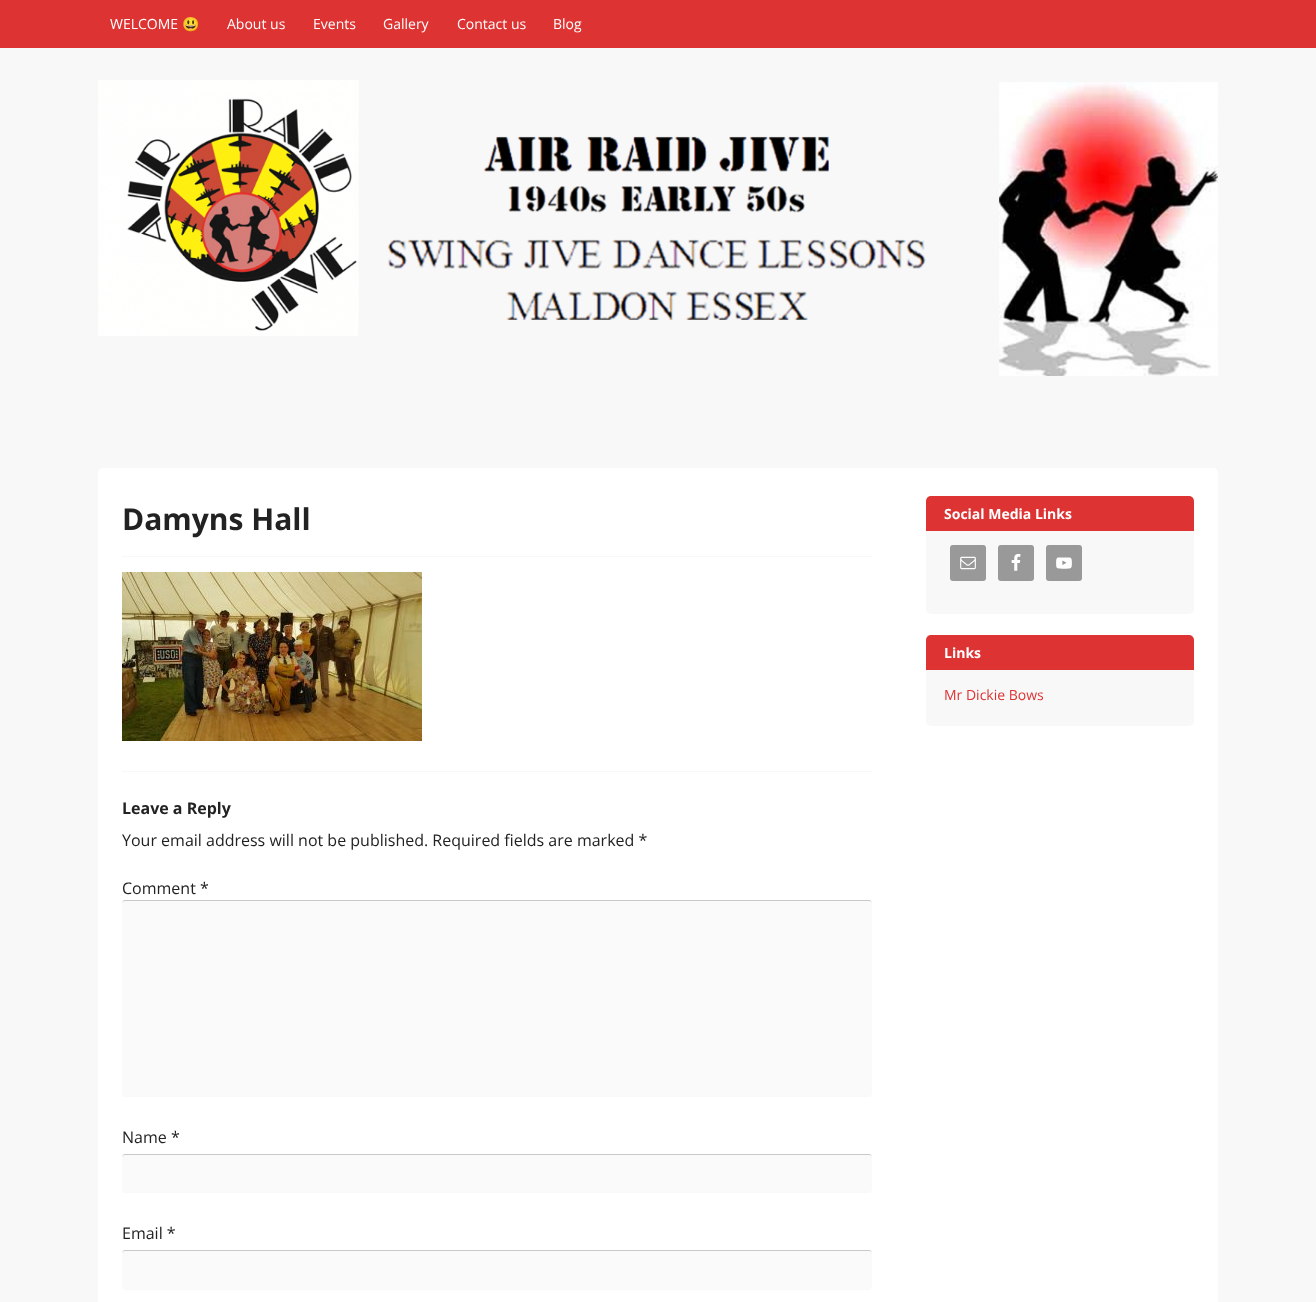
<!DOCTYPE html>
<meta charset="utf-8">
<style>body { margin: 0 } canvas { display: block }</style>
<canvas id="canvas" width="1316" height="1302"></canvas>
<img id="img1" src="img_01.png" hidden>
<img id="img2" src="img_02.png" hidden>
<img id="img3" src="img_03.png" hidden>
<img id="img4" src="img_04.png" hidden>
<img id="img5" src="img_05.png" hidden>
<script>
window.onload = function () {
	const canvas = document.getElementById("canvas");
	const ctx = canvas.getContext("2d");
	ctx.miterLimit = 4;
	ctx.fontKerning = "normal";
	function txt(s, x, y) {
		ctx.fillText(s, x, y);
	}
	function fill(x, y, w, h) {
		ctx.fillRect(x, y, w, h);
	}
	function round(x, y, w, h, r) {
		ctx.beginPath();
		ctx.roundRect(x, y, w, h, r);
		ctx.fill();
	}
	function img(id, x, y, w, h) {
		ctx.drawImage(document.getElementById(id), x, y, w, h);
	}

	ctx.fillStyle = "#F8F8F8";
	fill(0, 0, 1316, 1302);
	ctx.fillStyle = "#DD3333";
	fill(0, 0, 1316, 48);
	img("img1", 98, 80, 1120, 296);
	ctx.fillStyle = "#FFFFFF";
	round(98, 468, 1120, 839, 5);
	ctx.fillStyle = "#F8F8F8";
	fill(122, 556, 750, 1);
	fill(122, 771, 750, 1);
	img("img2", 122, 572, 300, 169);
	ctx.fillStyle = "#F9F9F9";
	ctx.beginPath();
	ctx.moveTo(122, 1093);
	ctx.bezierCurveTo(122, 1095, 123, 1097, 125, 1097);
	ctx.lineTo(869, 1097);
	ctx.bezierCurveTo(871, 1097, 872, 1095, 872, 1093);
	ctx.bezierCurveTo(872, 1095, 871, 1096, 869, 1096);
	ctx.lineTo(125, 1096);
	ctx.bezierCurveTo(123, 1096, 122, 1095, 122, 1093);
	ctx.closePath();
	ctx.fill();
	ctx.fillStyle = "#FAFAFA";
	round(122, 900, 750, 196, 3);
	ctx.fillStyle = "#C8C8C8";
	ctx.beginPath();
	ctx.moveTo(125, 901);
	ctx.lineTo(869, 901);
	ctx.bezierCurveTo(871, 901, 872, 902, 872, 904);
	ctx.bezierCurveTo(872, 902, 871, 900, 869, 900);
	ctx.lineTo(125, 900);
	ctx.bezierCurveTo(123, 900, 122, 902, 122, 904);
	ctx.bezierCurveTo(122, 902, 123, 901, 125, 901);
	ctx.closePath();
	ctx.fill();
	ctx.fillStyle = "#F9F9F9";
	ctx.beginPath();
	ctx.moveTo(122, 1189);
	ctx.bezierCurveTo(122, 1191, 123, 1193, 125, 1193);
	ctx.lineTo(869, 1193);
	ctx.bezierCurveTo(871, 1193, 872, 1191, 872, 1189);
	ctx.bezierCurveTo(872, 1191, 871, 1192, 869, 1192);
	ctx.lineTo(125, 1192);
	ctx.bezierCurveTo(123, 1192, 122, 1191, 122, 1189);
	ctx.closePath();
	ctx.fill();
	ctx.fillStyle = "#FAFAFA";
	round(122, 1154, 750, 38, 3);
	ctx.fillStyle = "#C8C8C8";
	ctx.beginPath();
	ctx.moveTo(125, 1155);
	ctx.lineTo(869, 1155);
	ctx.bezierCurveTo(871, 1155, 872, 1156, 872, 1158);
	ctx.bezierCurveTo(872, 1156, 871, 1154, 869, 1154);
	ctx.lineTo(125, 1154);
	ctx.bezierCurveTo(123, 1154, 122, 1156, 122, 1158);
	ctx.bezierCurveTo(122, 1156, 123, 1155, 125, 1155);
	ctx.closePath();
	ctx.fill();
	ctx.fillStyle = "#F9F9F9";
	ctx.beginPath();
	ctx.moveTo(122, 1286);
	ctx.bezierCurveTo(122, 1288, 123, 1290, 125, 1290);
	ctx.lineTo(869, 1290);
	ctx.bezierCurveTo(871, 1290, 872, 1288, 872, 1286);
	ctx.bezierCurveTo(872, 1288, 871, 1289, 869, 1289);
	ctx.lineTo(125, 1289);
	ctx.bezierCurveTo(123, 1289, 122, 1288, 122, 1286);
	ctx.closePath();
	ctx.fill();
	ctx.fillStyle = "#FAFAFA";
	round(122, 1250, 750, 39, 3);
	ctx.fillStyle = "#C8C8C8";
	ctx.beginPath();
	ctx.moveTo(125, 1251);
	ctx.lineTo(869, 1251);
	ctx.bezierCurveTo(871, 1251, 872, 1252, 872, 1254);
	ctx.bezierCurveTo(872, 1252, 871, 1250, 869, 1250);
	ctx.lineTo(125, 1250);
	ctx.bezierCurveTo(123, 1250, 122, 1252, 122, 1254);
	ctx.bezierCurveTo(122, 1252, 123, 1251, 125, 1251);
	ctx.closePath();
	ctx.fill();
	ctx.fillStyle = "#F8F8F8";
	round(926, 496, 268, 118, 5);
	ctx.fillStyle = "#DD3333";
	ctx.beginPath();
	ctx.roundRect(926, 496, 268, 35, [5, 5, 0, 0]);
	ctx.fill();
	ctx.fillStyle = "#999999";
	round(950, 545, 36, 36, 3);
	img("img3", 960, 556, 16, 14);
	round(998, 545, 36, 36, 3);
	img("img4", 1011, 554, 10, 17);
	round(1046, 545, 36, 36, 3);
	img("img5", 1056, 557, 16, 12);
	ctx.fillStyle = "#F8F8F8";
	round(926, 635, 268, 91, 5);
	ctx.fillStyle = "#DD3333";
	ctx.beginPath();
	ctx.roundRect(926, 635, 268, 35, [5, 5, 0, 0]);
	ctx.fill();
	ctx.font = "14px Open Sans";
	ctx.fillStyle = "#FFFFFF";
	txt("WELCOME", 110, 29);
	ctx.font = "14px Noto Color Emoji";
	txt("😃", 182, 29);
	ctx.font = "14px Open Sans";
	txt("About us", 227, 29);
	txt("Events", 313, 29);
	txt("Gallery", 383, 29);
	txt("Contact us", 457, 29);
	txt("Blog", 553, 29);
	ctx.font = "bold 30px Open Sans";
	ctx.fillStyle = "#222222";
	txt("Damyns Hall", 122, 530);
	ctx.font = "bold 16px Open Sans";
	txt("Leave a Reply", 122, 814);
	ctx.font = "16px Open Sans";
	txt("Your email address will not be published. Required fields are marked *", 122, 846);
	txt("Comment *", 122, 894);
	txt("Name *", 122, 1143);
	txt("Email *", 122, 1239);
	ctx.font = "bold 14px Open Sans";
	ctx.fillStyle = "#FFFFFF";
	txt("Social Media Links", 944, 519);
	txt("Links", 944, 658);
	ctx.font = "14px Open Sans";
	ctx.fillStyle = "#DD3333";
	txt("Mr Dickie Bows", 944, 700);
};
</script>
